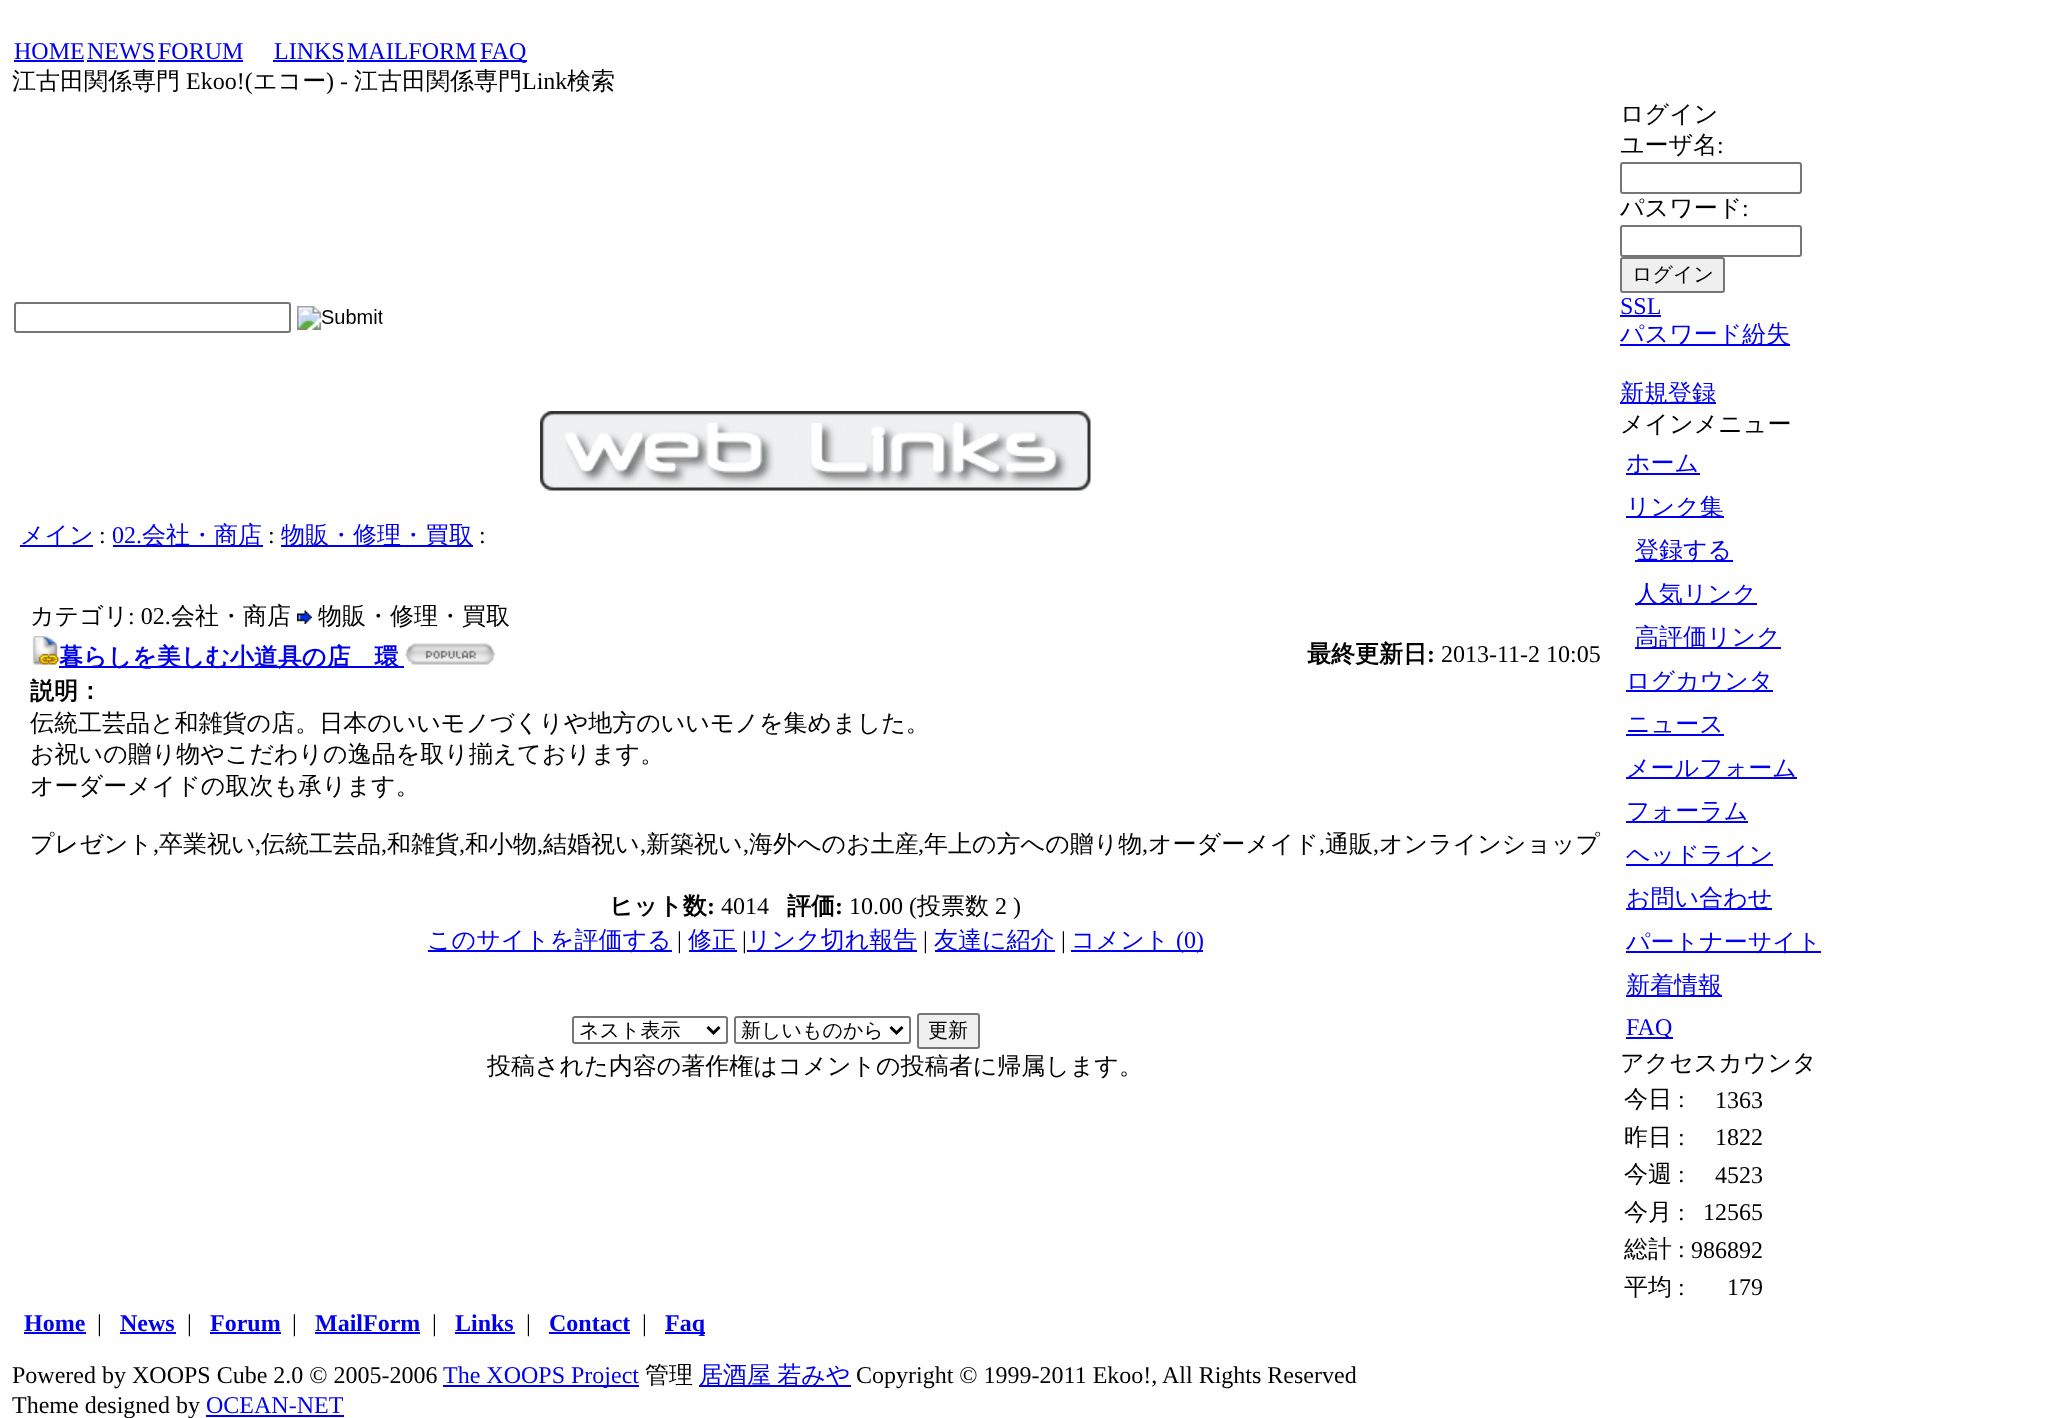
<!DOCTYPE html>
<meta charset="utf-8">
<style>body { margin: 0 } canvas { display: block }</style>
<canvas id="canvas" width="2065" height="1418"></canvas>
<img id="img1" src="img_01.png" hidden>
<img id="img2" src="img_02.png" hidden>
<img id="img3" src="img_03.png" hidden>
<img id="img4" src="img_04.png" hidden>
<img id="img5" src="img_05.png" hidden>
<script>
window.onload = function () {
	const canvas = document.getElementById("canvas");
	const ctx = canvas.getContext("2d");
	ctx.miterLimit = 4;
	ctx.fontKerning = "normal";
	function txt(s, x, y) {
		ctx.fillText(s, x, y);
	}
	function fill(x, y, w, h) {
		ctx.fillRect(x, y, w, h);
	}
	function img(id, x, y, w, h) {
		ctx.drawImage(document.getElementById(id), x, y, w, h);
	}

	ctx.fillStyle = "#FFFFFF";
	fill(0, 0, 2065, 1418);
	ctx.fillStyle = "#0000EE";
	fill(14, 60, 70, 2);
	fill(87, 60, 68, 2);
	fill(158, 60, 85, 2);
	fill(273, 60, 71, 2);
	fill(347, 60, 130, 2);
	fill(480, 60, 47, 2);
	ctx.beginPath();
	ctx.roundRect(15, 303, 275, 29, 2);
	ctx.strokeStyle = "#767676";
	ctx.lineWidth = 2;
	ctx.stroke();
	img("img1", 297, 306, 86, 24);
	img("img2", 540, 411, 551, 80);
	fill(20, 545, 73, 2);
	fill(113, 545, 150, 2);
	fill(281, 545, 192, 2);
	img("img3", 297, 610, 15, 14);
	img("img4", 32, 636, 27, 29);
	fill(59, 666, 345, 2);
	img("img5", 404, 643, 92, 22);
	fill(428, 950, 244, 2);
	fill(689, 950, 48, 2);
	fill(747, 950, 170, 2);
	fill(935, 950, 120, 2);
	fill(1071, 950, 132, 2);
	ctx.beginPath();
	ctx.roundRect(573, 1017, 154, 26, 2);
	ctx.stroke();
	ctx.beginPath();
	ctx.moveTo(707.5, 1027);
	ctx.lineTo(713.5, 1033);
	ctx.lineTo(719.5, 1027);
	ctx.strokeStyle = "#000000";
	ctx.lineWidth = 3;
	ctx.stroke();
	ctx.beginPath();
	ctx.roundRect(735, 1017, 175, 26, 2);
	ctx.strokeStyle = "#767676";
	ctx.lineWidth = 2;
	ctx.stroke();
	ctx.beginPath();
	ctx.moveTo(890.5, 1027);
	ctx.lineTo(896.5, 1033);
	ctx.lineTo(902.5, 1027);
	ctx.strokeStyle = "#000000";
	ctx.lineWidth = 3;
	ctx.stroke();
	ctx.fillStyle = "#EFEFEF";
	ctx.beginPath();
	ctx.roundRect(918, 1014, 61, 34, 2);
	ctx.fill();
	ctx.strokeStyle = "#767676";
	ctx.lineWidth = 2;
	ctx.stroke();
	ctx.beginPath();
	ctx.roundRect(1621, 163, 180, 30, 2);
	ctx.stroke();
	ctx.beginPath();
	ctx.roundRect(1621, 226, 180, 30, 2);
	ctx.stroke();
	ctx.beginPath();
	ctx.roundRect(1621, 258, 103, 34, 2);
	ctx.fill();
	ctx.stroke();
	ctx.fillStyle = "#0000EE";
	fill(1620, 315, 41, 2);
	fill(1620, 344, 170, 2);
	fill(1620, 402, 96, 2);
	fill(1626, 473, 74, 2);
	fill(1626, 516, 98, 2);
	fill(1635, 560, 98, 2);
	fill(1635, 603, 122, 2);
	fill(1635, 647, 146, 2);
	fill(1626, 690, 147, 2);
	fill(1626, 734, 98, 2);
	fill(1626, 777, 171, 2);
	fill(1626, 821, 122, 2);
	fill(1626, 864, 147, 2);
	fill(1626, 908, 146, 2);
	fill(1626, 951, 195, 2);
	fill(1626, 995, 96, 2);
	fill(1626, 1037, 47, 2);
	fill(24, 1332, 62, 2);
	fill(120, 1332, 56, 2);
	fill(210, 1332, 71, 2);
	fill(315, 1332, 105, 2);
	fill(455, 1332, 60, 2);
	fill(549, 1332, 81, 2);
	fill(665, 1332, 40, 2);
	fill(443, 1385, 196, 2);
	fill(699, 1385, 152, 2);
	fill(206, 1415, 138, 2);
	ctx.font = "24px Liberation Serif";
	txt("HOME", 14, 59);
	txt("NEWS", 87, 59);
	txt("FORUM", 158, 59);
	txt("LINKS", 274, 59);
	txt("MAILFORM", 347, 59);
	txt("FAQ", 480, 59);
	ctx.font = "500 24px WenQuanYi Zen Hei";
	ctx.fillStyle = "#000000";
	txt("江古田関係専門", 12, 89);
	ctx.font = "24px Liberation Serif";
	txt("Ekoo!(", 186, 89);
	ctx.font = "500 24px WenQuanYi Zen Hei";
	txt("エコー", 253, 89);
	ctx.font = "24px Liberation Serif";
	txt(") -", 326, 89);
	ctx.font = "500 24px WenQuanYi Zen Hei";
	txt("江古田関係専門", 354, 89);
	ctx.font = "24px Liberation Serif";
	txt("Link", 522, 89);
	ctx.font = "500 24px WenQuanYi Zen Hei";
	txt("検索", 567, 89);
	ctx.fillStyle = "#0000EE";
	txt("メイン", 20, 543);
	ctx.font = "24px Liberation Serif";
	ctx.fillStyle = "#000000";
	txt(":", 99, 543);
	ctx.fillStyle = "#0000EE";
	txt("02.", 112, 543);
	ctx.font = "500 24px WenQuanYi Zen Hei";
	txt("会社・商店", 142, 543);
	ctx.font = "24px Liberation Serif";
	ctx.fillStyle = "#000000";
	txt(":", 268, 543);
	ctx.font = "500 24px WenQuanYi Zen Hei";
	ctx.fillStyle = "#0000EE";
	txt("物販・修理・買取", 281, 543);
	ctx.font = "24px Liberation Serif";
	ctx.fillStyle = "#000000";
	txt(":", 479, 543);
	ctx.font = "500 24px WenQuanYi Zen Hei";
	txt("カテゴリ", 30, 624);
	ctx.font = "24px Liberation Serif";
	txt(": 02.", 128, 624);
	ctx.font = "500 24px WenQuanYi Zen Hei";
	txt("会社・商店", 171, 624);
	txt("物販・修理・買取", 318, 624);
	ctx.font = "bold 24px WenQuanYi Zen Hei";
	ctx.fillStyle = "#0000EE";
	txt("暮らしを美しむ小道具の店　環", 59, 665);
	ctx.fillStyle = "#000000";
	txt("最終更新日", 1307, 662);
	ctx.font = "bold 24px Liberation Serif";
	txt(":", 1427, 662);
	ctx.font = "24px Liberation Serif";
	txt("2013-11-2 10:05", 1441, 662);
	ctx.font = "bold 24px WenQuanYi Zen Hei";
	txt("説明：", 30, 699);
	ctx.font = "500 24px WenQuanYi Zen Hei";
	txt("伝統工芸品と和雑貨の店。日本のいいモノづくりや地方のいいモノを集めました。", 30, 731);
	txt("お祝いの贈り物やこだわりの逸品を取り揃えております。", 30, 762);
	txt("オーダーメイドの取次も承ります。", 30, 794);
	txt("プレゼント", 30, 852);
	ctx.font = "24px Liberation Serif";
	txt(",", 153, 852);
	ctx.font = "500 24px WenQuanYi Zen Hei";
	txt("卒業祝い", 159, 852);
	ctx.font = "24px Liberation Serif";
	txt(",", 255, 852);
	ctx.font = "500 24px WenQuanYi Zen Hei";
	txt("伝統工芸品", 261, 852);
	ctx.font = "24px Liberation Serif";
	txt(",", 381, 852);
	ctx.font = "500 24px WenQuanYi Zen Hei";
	txt("和雑貨", 387, 852);
	ctx.font = "24px Liberation Serif";
	txt(",", 459, 852);
	ctx.font = "500 24px WenQuanYi Zen Hei";
	txt("和小物", 465, 852);
	ctx.font = "24px Liberation Serif";
	txt(",", 537, 852);
	ctx.font = "500 24px WenQuanYi Zen Hei";
	txt("結婚祝い", 543, 852);
	ctx.font = "24px Liberation Serif";
	txt(",", 640, 852);
	ctx.font = "500 24px WenQuanYi Zen Hei";
	txt("新築祝い", 646, 852);
	ctx.font = "24px Liberation Serif";
	txt(",", 743, 852);
	ctx.font = "500 24px WenQuanYi Zen Hei";
	txt("海外へのお土産", 749, 852);
	ctx.font = "24px Liberation Serif";
	txt(",", 918, 852);
	ctx.font = "500 24px WenQuanYi Zen Hei";
	txt("年上の方への贈り物", 924, 852);
	ctx.font = "24px Liberation Serif";
	txt(",", 1142, 852);
	ctx.font = "500 24px WenQuanYi Zen Hei";
	txt("オーダーメイド", 1148, 852);
	ctx.font = "24px Liberation Serif";
	txt(",", 1319, 852);
	ctx.font = "500 24px WenQuanYi Zen Hei";
	txt("通販", 1325, 852);
	ctx.font = "24px Liberation Serif";
	txt(",", 1373, 852);
	ctx.font = "500 24px WenQuanYi Zen Hei";
	txt("オンラインショップ", 1379, 852);
	ctx.font = "bold 24px WenQuanYi Zen Hei";
	txt("ヒット数", 609, 914);
	ctx.font = "bold 24px Liberation Serif";
	txt(":", 707, 914);
	ctx.font = "24px Liberation Serif";
	txt("4014", 721, 914);
	ctx.font = "bold 24px WenQuanYi Zen Hei";
	txt("評価", 787, 914);
	ctx.font = "bold 24px Liberation Serif";
	txt(":", 835, 914);
	ctx.font = "24px Liberation Serif";
	txt("10.00 (", 849, 914);
	ctx.font = "500 24px WenQuanYi Zen Hei";
	txt("投票数", 917, 914);
	ctx.font = "24px Liberation Serif";
	txt("2 )", 995, 914);
	ctx.font = "500 24px WenQuanYi Zen Hei";
	ctx.fillStyle = "#0000EE";
	txt("このサイトを評価する", 427, 948);
	ctx.font = "24px Liberation Serif";
	ctx.fillStyle = "#000000";
	txt("|", 677, 948);
	ctx.font = "500 24px WenQuanYi Zen Hei";
	ctx.fillStyle = "#0000EE";
	txt("修正", 688, 948);
	ctx.font = "24px Liberation Serif";
	ctx.fillStyle = "#000000";
	txt("|", 742, 948);
	ctx.font = "500 24px WenQuanYi Zen Hei";
	ctx.fillStyle = "#0000EE";
	txt("リンク切れ報告", 747, 948);
	ctx.font = "24px Liberation Serif";
	ctx.fillStyle = "#000000";
	txt("|", 923, 948);
	ctx.font = "500 24px WenQuanYi Zen Hei";
	ctx.fillStyle = "#0000EE";
	txt("友達に紹介", 934, 948);
	ctx.font = "24px Liberation Serif";
	ctx.fillStyle = "#000000";
	txt("|", 1061, 948);
	ctx.font = "500 24px WenQuanYi Zen Hei";
	ctx.fillStyle = "#0000EE";
	txt("コメント", 1071, 948);
	ctx.font = "24px Liberation Serif";
	txt("(0)", 1176, 948);
	ctx.font = "500 20px WenQuanYi Zen Hei";
	ctx.fillStyle = "#000000";
	txt("ネスト表示", 579, 1037);
	txt("新しいものから", 741, 1037);
	txt("更新", 928, 1037);
	ctx.font = "500 24px WenQuanYi Zen Hei";
	txt("投稿された内容の著作権はコメントの投稿者に帰属します。", 487, 1074);
	txt("ログイン", 1620, 122);
	txt("ユーザ名", 1620, 153);
	ctx.font = "24px Liberation Serif";
	txt(":", 1717, 153);
	ctx.font = "500 24px WenQuanYi Zen Hei";
	txt("パスワード", 1620, 216);
	ctx.font = "24px Liberation Serif";
	txt(":", 1742, 216);
	ctx.font = "500 20px WenQuanYi Zen Hei";
	txt("ログイン", 1632, 281);
	ctx.font = "24px Liberation Serif";
	ctx.fillStyle = "#0000EE";
	txt("SSL", 1620, 314);
	ctx.font = "500 24px WenQuanYi Zen Hei";
	txt("パスワード紛失", 1620, 342);
	txt("新規登録", 1620, 401);
	ctx.fillStyle = "#000000";
	txt("メインメニュー", 1620, 432);
	ctx.fillStyle = "#0000EE";
	txt("ホーム", 1626, 471);
	txt("リンク集", 1626, 515);
	txt("登録する", 1635, 558);
	txt("人気リンク", 1635, 602);
	txt("高評価リンク", 1635, 645);
	txt("ログカウンタ", 1626, 689);
	txt("ニュース", 1626, 732);
	txt("メールフォーム", 1626, 776);
	txt("フォーラム", 1626, 819);
	txt("ヘッドライン", 1626, 863);
	txt("お問い合わせ", 1626, 906);
	txt("パートナーサイト", 1626, 950);
	txt("新着情報", 1626, 993);
	ctx.font = "24px Liberation Serif";
	txt("FAQ", 1626, 1035);
	ctx.font = "500 24px WenQuanYi Zen Hei";
	ctx.fillStyle = "#000000";
	txt("アクセスカウンタ", 1620, 1071);
	txt("今日", 1624, 1107);
	ctx.font = "24px Liberation Serif";
	txt(":", 1678, 1107);
	txt("1363", 1715, 1108);
	ctx.font = "500 24px WenQuanYi Zen Hei";
	txt("昨日", 1624, 1145);
	ctx.font = "24px Liberation Serif";
	txt(":", 1678, 1145);
	txt("1822", 1715, 1145);
	ctx.font = "500 24px WenQuanYi Zen Hei";
	txt("今週", 1624, 1182);
	ctx.font = "24px Liberation Serif";
	txt(":", 1678, 1182);
	txt("4523", 1715, 1183);
	ctx.font = "500 24px WenQuanYi Zen Hei";
	txt("今月", 1624, 1220);
	ctx.font = "24px Liberation Serif";
	txt(":", 1678, 1220);
	txt("12565", 1703, 1220);
	ctx.font = "500 24px WenQuanYi Zen Hei";
	txt("総計", 1624, 1257);
	ctx.font = "24px Liberation Serif";
	txt(":", 1678, 1257);
	txt("986892", 1691, 1258);
	ctx.font = "500 24px WenQuanYi Zen Hei";
	txt("平均", 1624, 1295);
	ctx.font = "24px Liberation Serif";
	txt(":", 1678, 1295);
	txt("179", 1727, 1295);
	ctx.font = "bold 24px Liberation Serif";
	ctx.fillStyle = "#0000EE";
	txt("Home", 24, 1331);
	ctx.font = "24px Liberation Serif";
	ctx.fillStyle = "#000000";
	txt("|", 97, 1331);
	ctx.font = "bold 24px Liberation Serif";
	ctx.fillStyle = "#0000EE";
	txt("News", 120, 1331);
	ctx.font = "24px Liberation Serif";
	ctx.fillStyle = "#000000";
	txt("|", 187, 1331);
	ctx.font = "bold 24px Liberation Serif";
	ctx.fillStyle = "#0000EE";
	txt("Forum", 210, 1331);
	ctx.font = "24px Liberation Serif";
	ctx.fillStyle = "#000000";
	txt("|", 292, 1331);
	ctx.font = "bold 24px Liberation Serif";
	ctx.fillStyle = "#0000EE";
	txt("MailForm", 315, 1331);
	ctx.font = "24px Liberation Serif";
	ctx.fillStyle = "#000000";
	txt("|", 432, 1331);
	ctx.font = "bold 24px Liberation Serif";
	ctx.fillStyle = "#0000EE";
	txt("Links", 455, 1331);
	ctx.font = "24px Liberation Serif";
	ctx.fillStyle = "#000000";
	txt("|", 526, 1331);
	ctx.font = "bold 24px Liberation Serif";
	ctx.fillStyle = "#0000EE";
	txt("Contact", 549, 1331);
	ctx.font = "24px Liberation Serif";
	ctx.fillStyle = "#000000";
	txt("|", 642, 1331);
	ctx.font = "bold 24px Liberation Serif";
	ctx.fillStyle = "#0000EE";
	txt("Faq", 665, 1331);
	ctx.font = "24px Liberation Serif";
	ctx.fillStyle = "#000000";
	txt("Powered by XOOPS Cube 2.0 © 2005-2006", 12, 1383);
	ctx.fillStyle = "#0000EE";
	txt("The XOOPS Project", 443, 1383);
	ctx.font = "500 24px WenQuanYi Zen Hei";
	ctx.fillStyle = "#000000";
	txt("管理", 645, 1383);
	ctx.wordSpacing = "-1px";
	ctx.fillStyle = "#0000EE";
	txt("居酒屋 若みや", 699, 1383);
	ctx.wordSpacing = "0px";
	ctx.font = "24px Liberation Serif";
	ctx.fillStyle = "#000000";
	txt("Copyright © 1999-2011 Ekoo!, All Rights Reserved", 856, 1383);
	txt("Theme designed by", 12, 1413);
	ctx.fillStyle = "#0000EE";
	txt("OCEAN-NET", 206, 1413);
};
</script>
